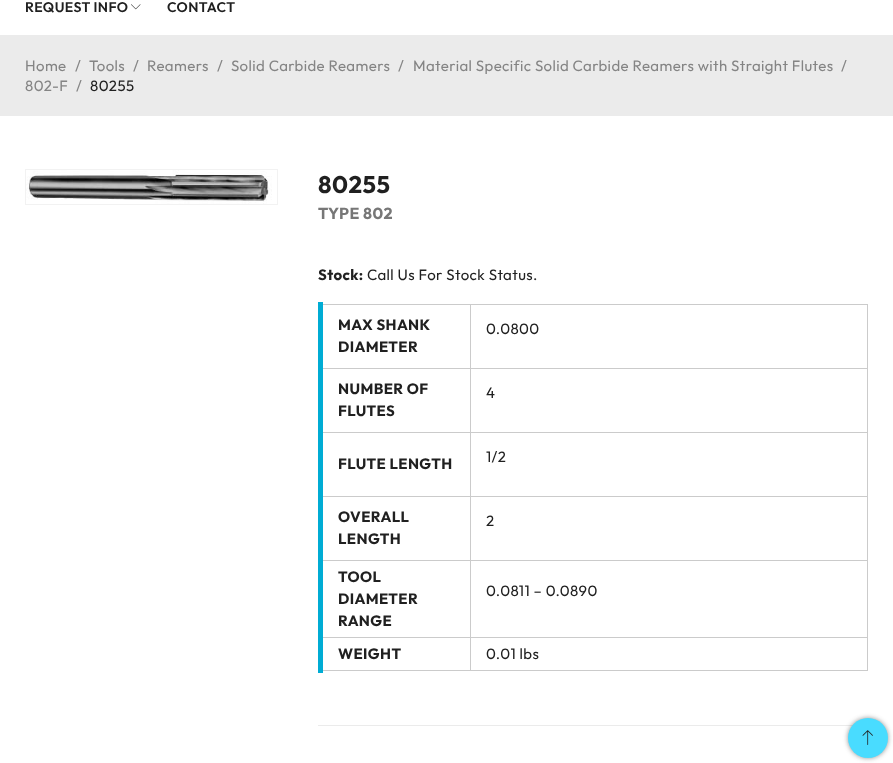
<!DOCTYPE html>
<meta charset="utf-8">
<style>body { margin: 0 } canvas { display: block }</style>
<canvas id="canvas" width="893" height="763"></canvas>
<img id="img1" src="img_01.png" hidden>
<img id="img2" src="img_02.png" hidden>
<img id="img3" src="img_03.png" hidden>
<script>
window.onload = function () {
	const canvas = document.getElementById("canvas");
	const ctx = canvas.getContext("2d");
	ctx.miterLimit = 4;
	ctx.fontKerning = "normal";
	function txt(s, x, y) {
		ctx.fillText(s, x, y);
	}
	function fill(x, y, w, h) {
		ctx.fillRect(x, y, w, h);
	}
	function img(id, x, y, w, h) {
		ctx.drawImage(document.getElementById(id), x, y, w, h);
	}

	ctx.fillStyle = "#FFFFFF";
	fill(0, 0, 893, 763);
	img("img1", 131, 4, 10, 6);
	ctx.fillStyle = "#EBEBEB";
	fill(0, 35, 893, 81);
	ctx.strokeStyle = "#F2F2F2";
	ctx.strokeRect(25.5, 169.5, 252, 35);
	img("img2", 26, 170, 246, 34);
	fill(318, 725, 535, 1);
	ctx.fillStyle = "#CBCBCB";
	fill(318, 304, 550, 1);
	fill(867, 304, 1, 367);
	fill(318, 670, 550, 1);
	fill(470, 368, 398, 1);
	fill(470, 432, 398, 1);
	fill(470, 496, 398, 1);
	fill(470, 560, 398, 1);
	fill(470, 637, 398, 1);
	fill(470, 637, 1, 34);
	fill(320, 637, 151, 1);
	fill(470, 560, 1, 78);
	fill(320, 560, 151, 1);
	fill(470, 496, 1, 65);
	fill(320, 496, 151, 1);
	fill(470, 432, 1, 65);
	fill(320, 432, 151, 1);
	fill(470, 368, 1, 65);
	fill(320, 368, 151, 1);
	fill(470, 304, 1, 65);
	ctx.fillStyle = "#00ACD4";
	fill(318, 302, 5, 371);
	ctx.fillStyle = "rgba(36, 36, 36, 0.5)";
	ctx.filter = "blur(2.5px)";
	ctx.beginPath();
	ctx.roundRect(848, 718, 40, 40, 20);
	ctx.fill();
	ctx.filter = "none";
	ctx.fillStyle = "#49DCFF";
	ctx.beginPath();
	ctx.arc(868, 738, 20, 0, Math.PI * 2);
	ctx.fill();
	img("img3", 862, 730, 11, 15);
	ctx.letterSpacing = "0.4px";
	ctx.font = "600 14px Outfit";
	ctx.fillStyle = "#202020";
	txt("REQUEST INFO", 25, 12);
	txt("CONTACT", 167, 12);
	ctx.font = "15px Outfit";
	ctx.fillStyle = "#848484";
	txt("Home", 25, 71);
	txt("/", 75, 71);
	txt("Tools", 89, 71);
	txt("/", 133, 71);
	txt("Reamers", 147, 71);
	txt("/", 217, 71);
	txt("Solid Carbide Reamers", 231, 71);
	txt("/", 398, 71);
	txt("Material Specific Solid Carbide Reamers with Straight Flutes", 413, 71);
	txt("/", 841, 71);
	txt("802-F", 25, 91);
	txt("/", 76, 91);
	ctx.fillStyle = "#202020";
	txt("80255", 90, 91);
	ctx.letterSpacing = "0.5px";
	ctx.font = "bold 24px Outfit";
	txt("80255", 318, 193);
	ctx.letterSpacing = "0.4px";
	ctx.font = "bold 16px Outfit";
	ctx.fillStyle = "#777777";
	txt("TYPE 802", 318, 219);
	ctx.font = "bold 15px Outfit";
	ctx.fillStyle = "#202020";
	txt("Stock:", 318, 280);
	ctx.font = "15px Outfit";
	txt("Call Us For Stock Status.", 367, 280);
	ctx.font = "bold 15px Outfit";
	txt("MAX SHANK", 338, 330);
	txt("DIAMETER", 338, 352);
	ctx.font = "15px Outfit";
	txt("0.0800", 486, 334);
	ctx.font = "bold 15px Outfit";
	txt("NUMBER OF", 338, 394);
	txt("FLUTES", 338, 416);
	ctx.font = "15px Outfit";
	txt("4", 486, 398);
	ctx.font = "bold 15px Outfit";
	txt("FLUTE LENGTH", 338, 469);
	ctx.font = "15px Outfit";
	txt("1/2", 486, 462);
	ctx.font = "bold 15px Outfit";
	txt("OVERALL", 338, 522);
	txt("LENGTH", 338, 544);
	ctx.font = "15px Outfit";
	txt("2", 486, 526);
	ctx.font = "bold 15px Outfit";
	txt("TOOL", 338, 582);
	txt("DIAMETER", 338, 604);
	txt("RANGE", 338, 626);
	ctx.font = "15px Outfit";
	txt("0.0811 – 0.0890", 486, 596);
	ctx.font = "bold 15px Outfit";
	txt("WEIGHT", 338, 659);
	ctx.font = "15px Outfit";
	txt("0.01 lbs", 486, 659);
};
</script>
